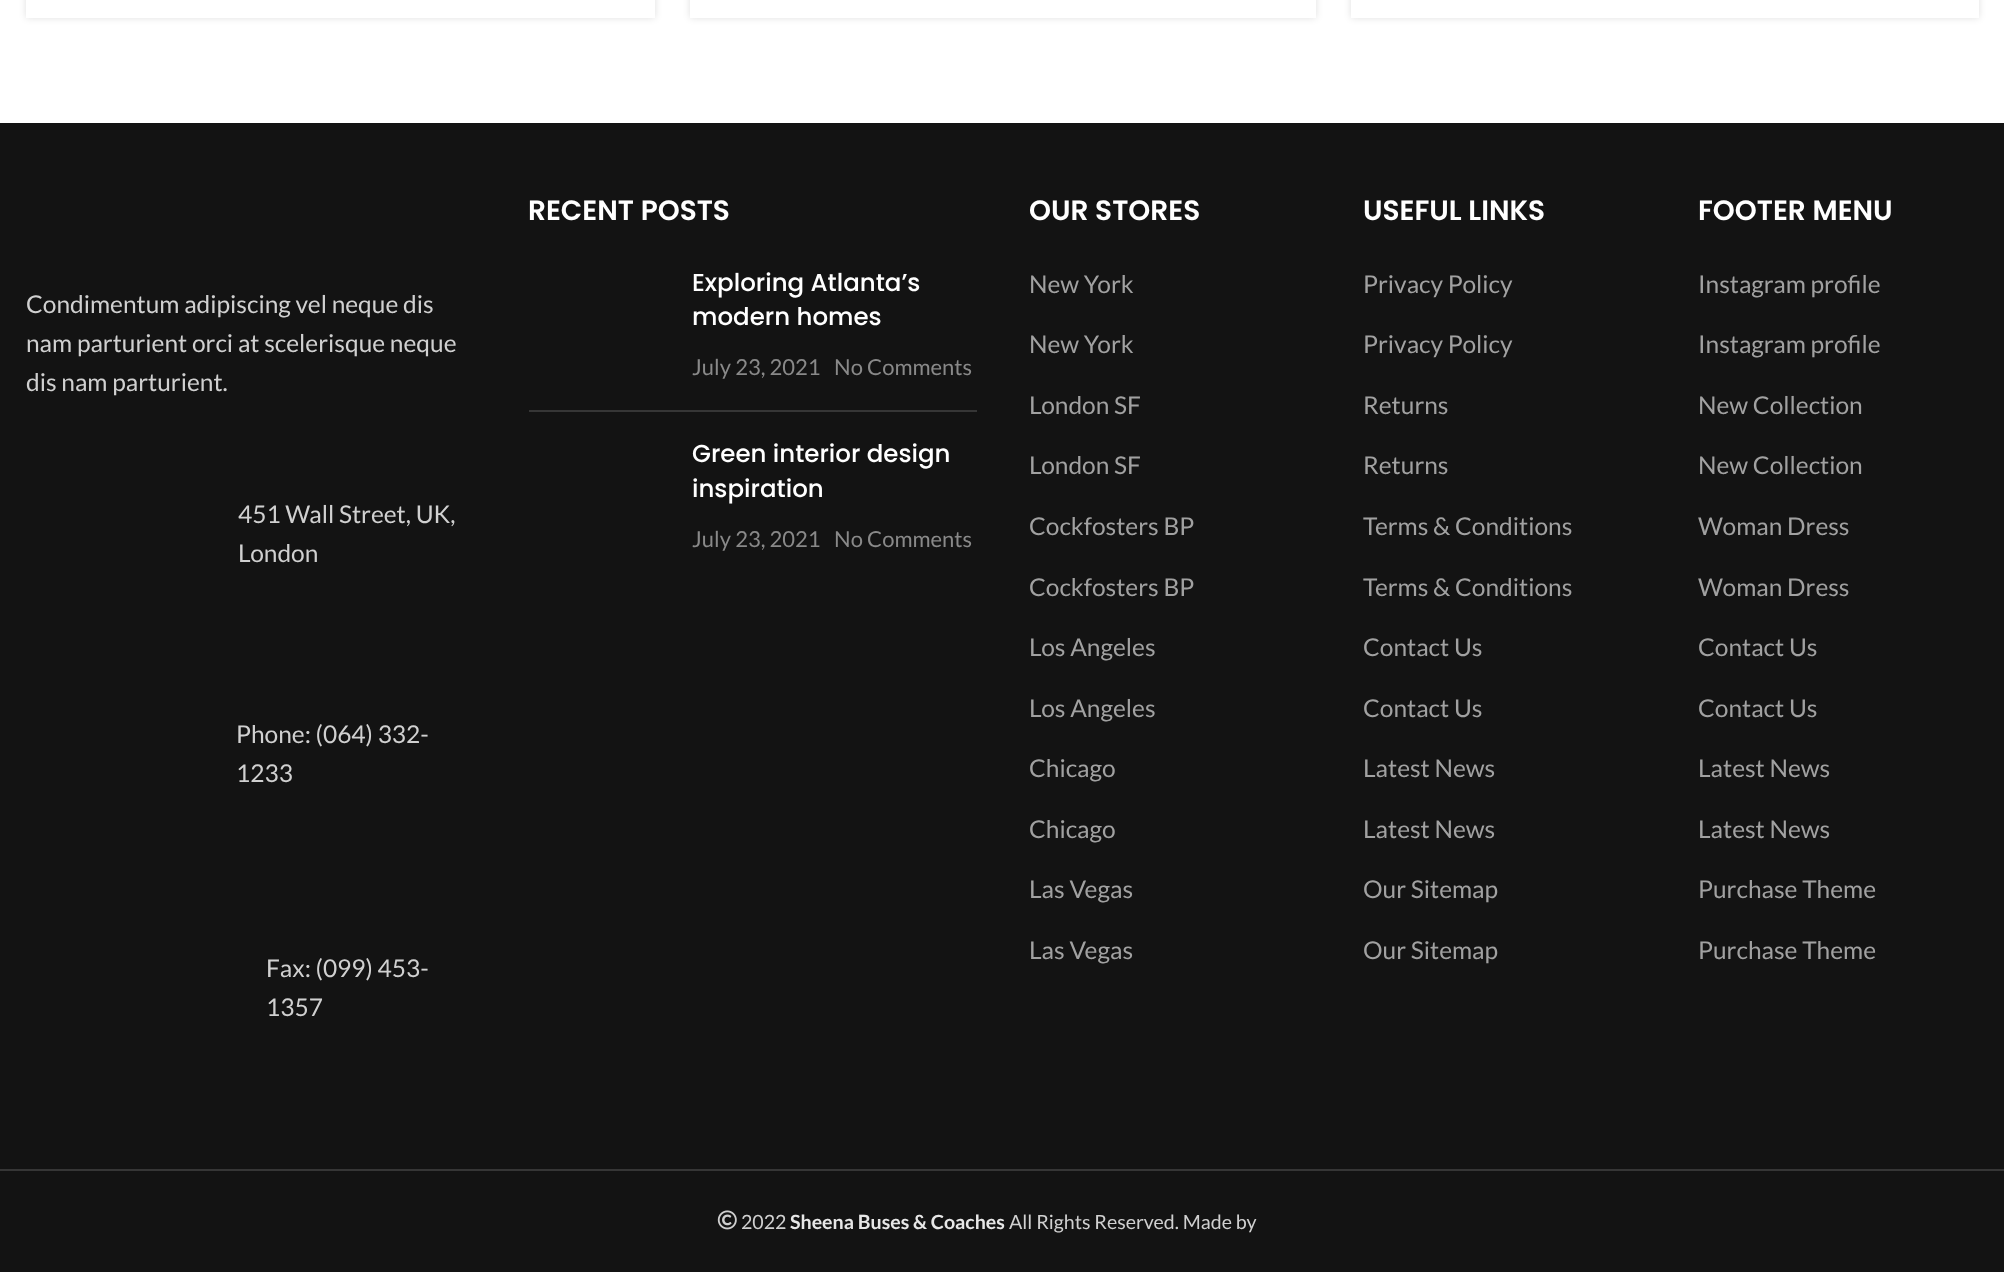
<!DOCTYPE html>
<meta charset="utf-8">
<style>body { margin: 0 } canvas { display: block }</style>
<canvas id="canvas" width="2004" height="1272"></canvas>
<img id="img1" src="img_01.png" hidden>
<script>
window.onload = function () {
	const canvas = document.getElementById("canvas");
	const ctx = canvas.getContext("2d");
	ctx.miterLimit = 4;
	ctx.fontKerning = "normal";
	function txt(s, x, y) {
		ctx.fillText(s, x, y);
	}
	function fill(x, y, w, h) {
		ctx.fillRect(x, y, w, h);
	}
	function img(id, x, y, w, h) {
		ctx.drawImage(document.getElementById(id), x, y, w, h);
	}

	ctx.fillStyle = "#FFFFFF";
	fill(0, 0, 2004, 1272);
	ctx.fillStyle = "rgba(0, 0, 0, 0.12)";
	ctx.filter = "blur(3.5px)";
	ctx.beginPath();
	ctx.rect(26, -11, 629, 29);
	ctx.fill();
	ctx.filter = "none";
	ctx.fillStyle = "#FFFFFF";
	fill(26, 0, 629, 18);
	ctx.fillStyle = "rgba(0, 0, 0, 0.12)";
	ctx.filter = "blur(3.5px)";
	ctx.beginPath();
	ctx.rect(690, -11, 626, 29);
	ctx.fill();
	ctx.filter = "none";
	ctx.fillStyle = "#FFFFFF";
	fill(690, 0, 626, 18);
	ctx.fillStyle = "rgba(0, 0, 0, 0.12)";
	ctx.filter = "blur(3.5px)";
	ctx.beginPath();
	ctx.rect(1351, -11, 628, 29);
	ctx.fill();
	ctx.filter = "none";
	ctx.fillStyle = "#FFFFFF";
	fill(1351, 0, 628, 18);
	ctx.fillStyle = "#131313";
	fill(0, 123, 2004, 1149);
	ctx.fillStyle = "#363636";
	fill(529, 410, 448, 2);
	fill(0, 1169, 2004, 2);
	img("img1", 717, 1210, 20, 20);
	ctx.font = "24.5px Lato";
	ctx.fillStyle = "#D0D0D0";
	txt("Condimentum adipiscing vel neque dis", 26, 313);
	txt("nam parturient orci at scelerisque neque", 26, 352);
	txt("dis nam parturient.", 26, 391);
	txt("451 Wall Street, UK,", 238, 523);
	txt("London", 238, 562);
	txt("Phone: (064) 332-", 236, 743);
	txt("1233", 236, 782);
	txt("Fax: (099) 453-", 266, 977);
	txt("1357", 266, 1016);
	ctx.font = "600 28px Poppins";
	ctx.fillStyle = "#FFFFFF";
	txt("RECENT POSTS", 528, 220);
	ctx.font = "500 24.5px Poppins";
	txt("Exploring Atlanta’s", 692, 291);
	txt("modern homes", 692, 325);
	ctx.font = "22px Lato";
	ctx.fillStyle = "#898989";
	txt("July 23, 2021", 692, 375);
	txt("No Comments", 834, 375);
	ctx.font = "500 24.5px Poppins";
	ctx.fillStyle = "#FFFFFF";
	txt("Green interior design", 692, 462);
	txt("inspiration", 692, 497);
	ctx.font = "22px Lato";
	ctx.fillStyle = "#898989";
	txt("July 23, 2021", 692, 547);
	txt("No Comments", 834, 547);
	ctx.font = "600 28px Poppins";
	ctx.fillStyle = "#FFFFFF";
	txt("OUR STORES", 1029, 220);
	ctx.font = "24.5px Lato";
	ctx.fillStyle = "#A1A1A1";
	txt("New York", 1029, 293);
	txt("New York", 1029, 353);
	txt("London SF", 1029, 414);
	txt("London SF", 1029, 474);
	txt("Cockfosters BP", 1029, 535);
	txt("Cockfosters BP", 1029, 596);
	txt("Los Angeles", 1029, 656);
	txt("Los Angeles", 1029, 717);
	txt("Chicago", 1029, 777);
	txt("Chicago", 1029, 838);
	txt("Las Vegas", 1029, 898);
	txt("Las Vegas", 1029, 959);
	ctx.font = "600 28px Poppins";
	ctx.fillStyle = "#FFFFFF";
	txt("USEFUL LINKS", 1363, 220);
	ctx.font = "24.5px Lato";
	ctx.fillStyle = "#A1A1A1";
	txt("Privacy Policy", 1363, 293);
	txt("Privacy Policy", 1363, 353);
	txt("Returns", 1363, 414);
	txt("Returns", 1363, 474);
	txt("Terms & Conditions", 1363, 535);
	txt("Terms & Conditions", 1363, 596);
	txt("Contact Us", 1363, 656);
	txt("Contact Us", 1363, 717);
	txt("Latest News", 1363, 777);
	txt("Latest News", 1363, 838);
	txt("Our Sitemap", 1363, 898);
	txt("Our Sitemap", 1363, 959);
	ctx.font = "600 28px Poppins";
	ctx.fillStyle = "#FFFFFF";
	txt("FOOTER MENU", 1698, 220);
	ctx.font = "24.5px Lato";
	ctx.fillStyle = "#A1A1A1";
	txt("Instagram profile", 1698, 293);
	txt("Instagram profile", 1698, 353);
	txt("New Collection", 1698, 414);
	txt("New Collection", 1698, 474);
	txt("Woman Dress", 1698, 535);
	txt("Woman Dress", 1698, 596);
	txt("Contact Us", 1698, 656);
	txt("Contact Us", 1698, 717);
	txt("Latest News", 1698, 777);
	txt("Latest News", 1698, 838);
	txt("Purchase Theme", 1698, 898);
	txt("Purchase Theme", 1698, 959);
	ctx.font = "19.6px Lato";
	ctx.fillStyle = "#D0D0D0";
	txt("2022", 741, 1229);
	ctx.font = "bold 19.6px Lato";
	ctx.fillStyle = "#E7E7E7";
	txt("Sheena Buses & Coaches", 790, 1229);
	ctx.font = "19.6px Lato";
	ctx.fillStyle = "#D0D0D0";
	txt("All Rights Reserved. Made by", 1009, 1229);
};
</script>
